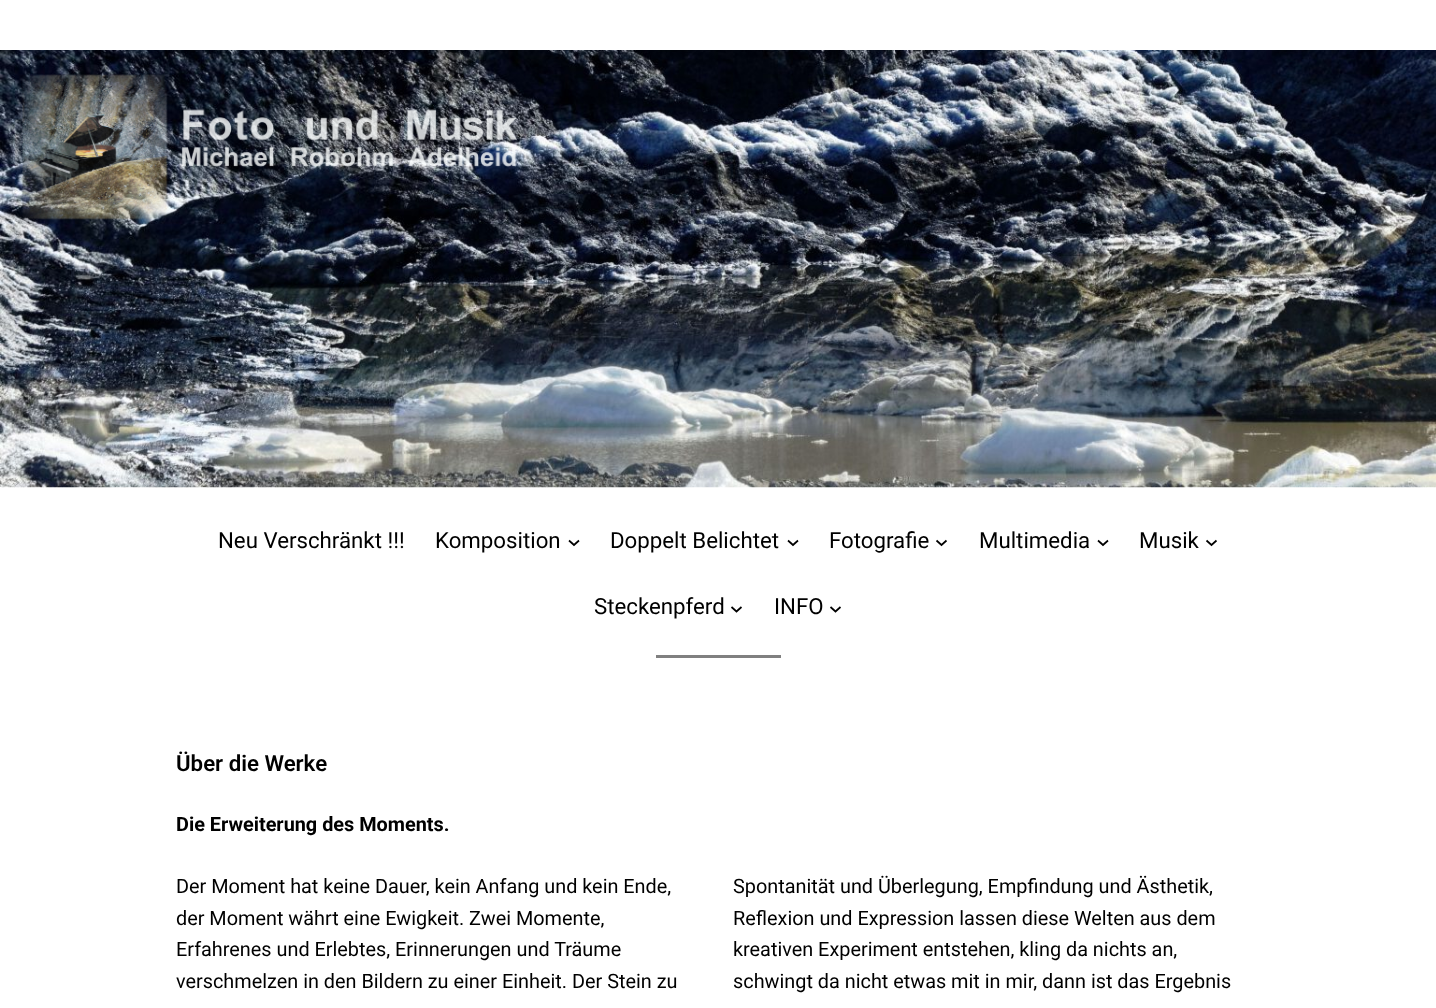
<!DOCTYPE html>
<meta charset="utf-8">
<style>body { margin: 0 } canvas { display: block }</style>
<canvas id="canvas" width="1436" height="1008"></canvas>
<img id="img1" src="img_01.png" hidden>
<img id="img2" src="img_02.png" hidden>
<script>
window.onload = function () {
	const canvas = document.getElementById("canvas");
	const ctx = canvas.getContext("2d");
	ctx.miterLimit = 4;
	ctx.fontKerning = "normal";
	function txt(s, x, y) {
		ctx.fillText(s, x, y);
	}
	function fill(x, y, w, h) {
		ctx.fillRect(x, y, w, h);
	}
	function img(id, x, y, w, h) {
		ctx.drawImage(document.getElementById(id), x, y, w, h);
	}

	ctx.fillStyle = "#FFFFFF";
	fill(0, 0, 1436, 1008);
	img("img1", 0, 50, 1436, 438);
	img("img2", 22, 74, 495, 146);
	ctx.beginPath();
	ctx.moveTo(569, 540.5);
	ctx.lineTo(574, 545);
	ctx.lineTo(579, 540.5);
	ctx.strokeStyle = "#000000";
	ctx.lineWidth = 1.7;
	ctx.stroke();
	ctx.beginPath();
	ctx.moveTo(788, 540.5);
	ctx.lineTo(793, 545);
	ctx.lineTo(798, 540.5);
	ctx.stroke();
	ctx.beginPath();
	ctx.moveTo(936.5, 540.5);
	ctx.lineTo(941.5, 545);
	ctx.lineTo(946.5, 540.5);
	ctx.stroke();
	ctx.beginPath();
	ctx.moveTo(1098, 540.5);
	ctx.lineTo(1103, 545);
	ctx.lineTo(1108, 540.5);
	ctx.stroke();
	ctx.beginPath();
	ctx.moveTo(1206.5, 540.5);
	ctx.lineTo(1211.5, 545);
	ctx.lineTo(1216.5, 540.5);
	ctx.stroke();
	ctx.beginPath();
	ctx.moveTo(731.5, 607);
	ctx.lineTo(736.5, 611.5);
	ctx.lineTo(741.5, 607);
	ctx.stroke();
	ctx.beginPath();
	ctx.moveTo(830.5, 607);
	ctx.lineTo(835.5, 611.5);
	ctx.lineTo(840.5, 607);
	ctx.stroke();
	ctx.fillStyle = "#808080";
	fill(656, 655, 125, 3);
	ctx.font = "22.25px Roboto";
	ctx.fillStyle = "#000000";
	txt("Neu Verschränkt !!!", 218, 548);
	txt("Komposition", 435, 548);
	txt("Doppelt Belichtet", 610, 548);
	txt("Fotografie", 829, 548);
	txt("Multimedia", 979, 548);
	txt("Musik", 1139, 548);
	txt("Steckenpferd", 594, 614);
	txt("INFO", 774, 614);
	ctx.font = "600 22.25px Roboto";
	txt("Über die Werke", 176, 771);
	ctx.font = "bold 19.85px Roboto";
	txt("Die Erweiterung des Moments.", 176, 831);
	ctx.font = "19.85px Roboto";
	txt("Der Moment hat keine Dauer, kein Anfang und kein Ende,", 176, 893);
	txt("der Moment währt eine Ewigkeit. Zwei Momente,", 176, 925);
	txt("Erfahrenes und Erlebtes, Erinnerungen und Träume", 176, 956);
	txt("verschmelzen in den Bildern zu einer Einheit. Der Stein zu", 176, 988);
	txt("Spontanität und Überlegung, Empfindung und Ästhetik,", 733, 893);
	txt("Reflexion und Expression lassen diese Welten aus dem", 733, 925);
	txt("kreativen Experiment entstehen, kling da nichts an,", 733, 956);
	txt("schwingt da nicht etwas mit in mir, dann ist das Ergebnis", 733, 988);
};
</script>
